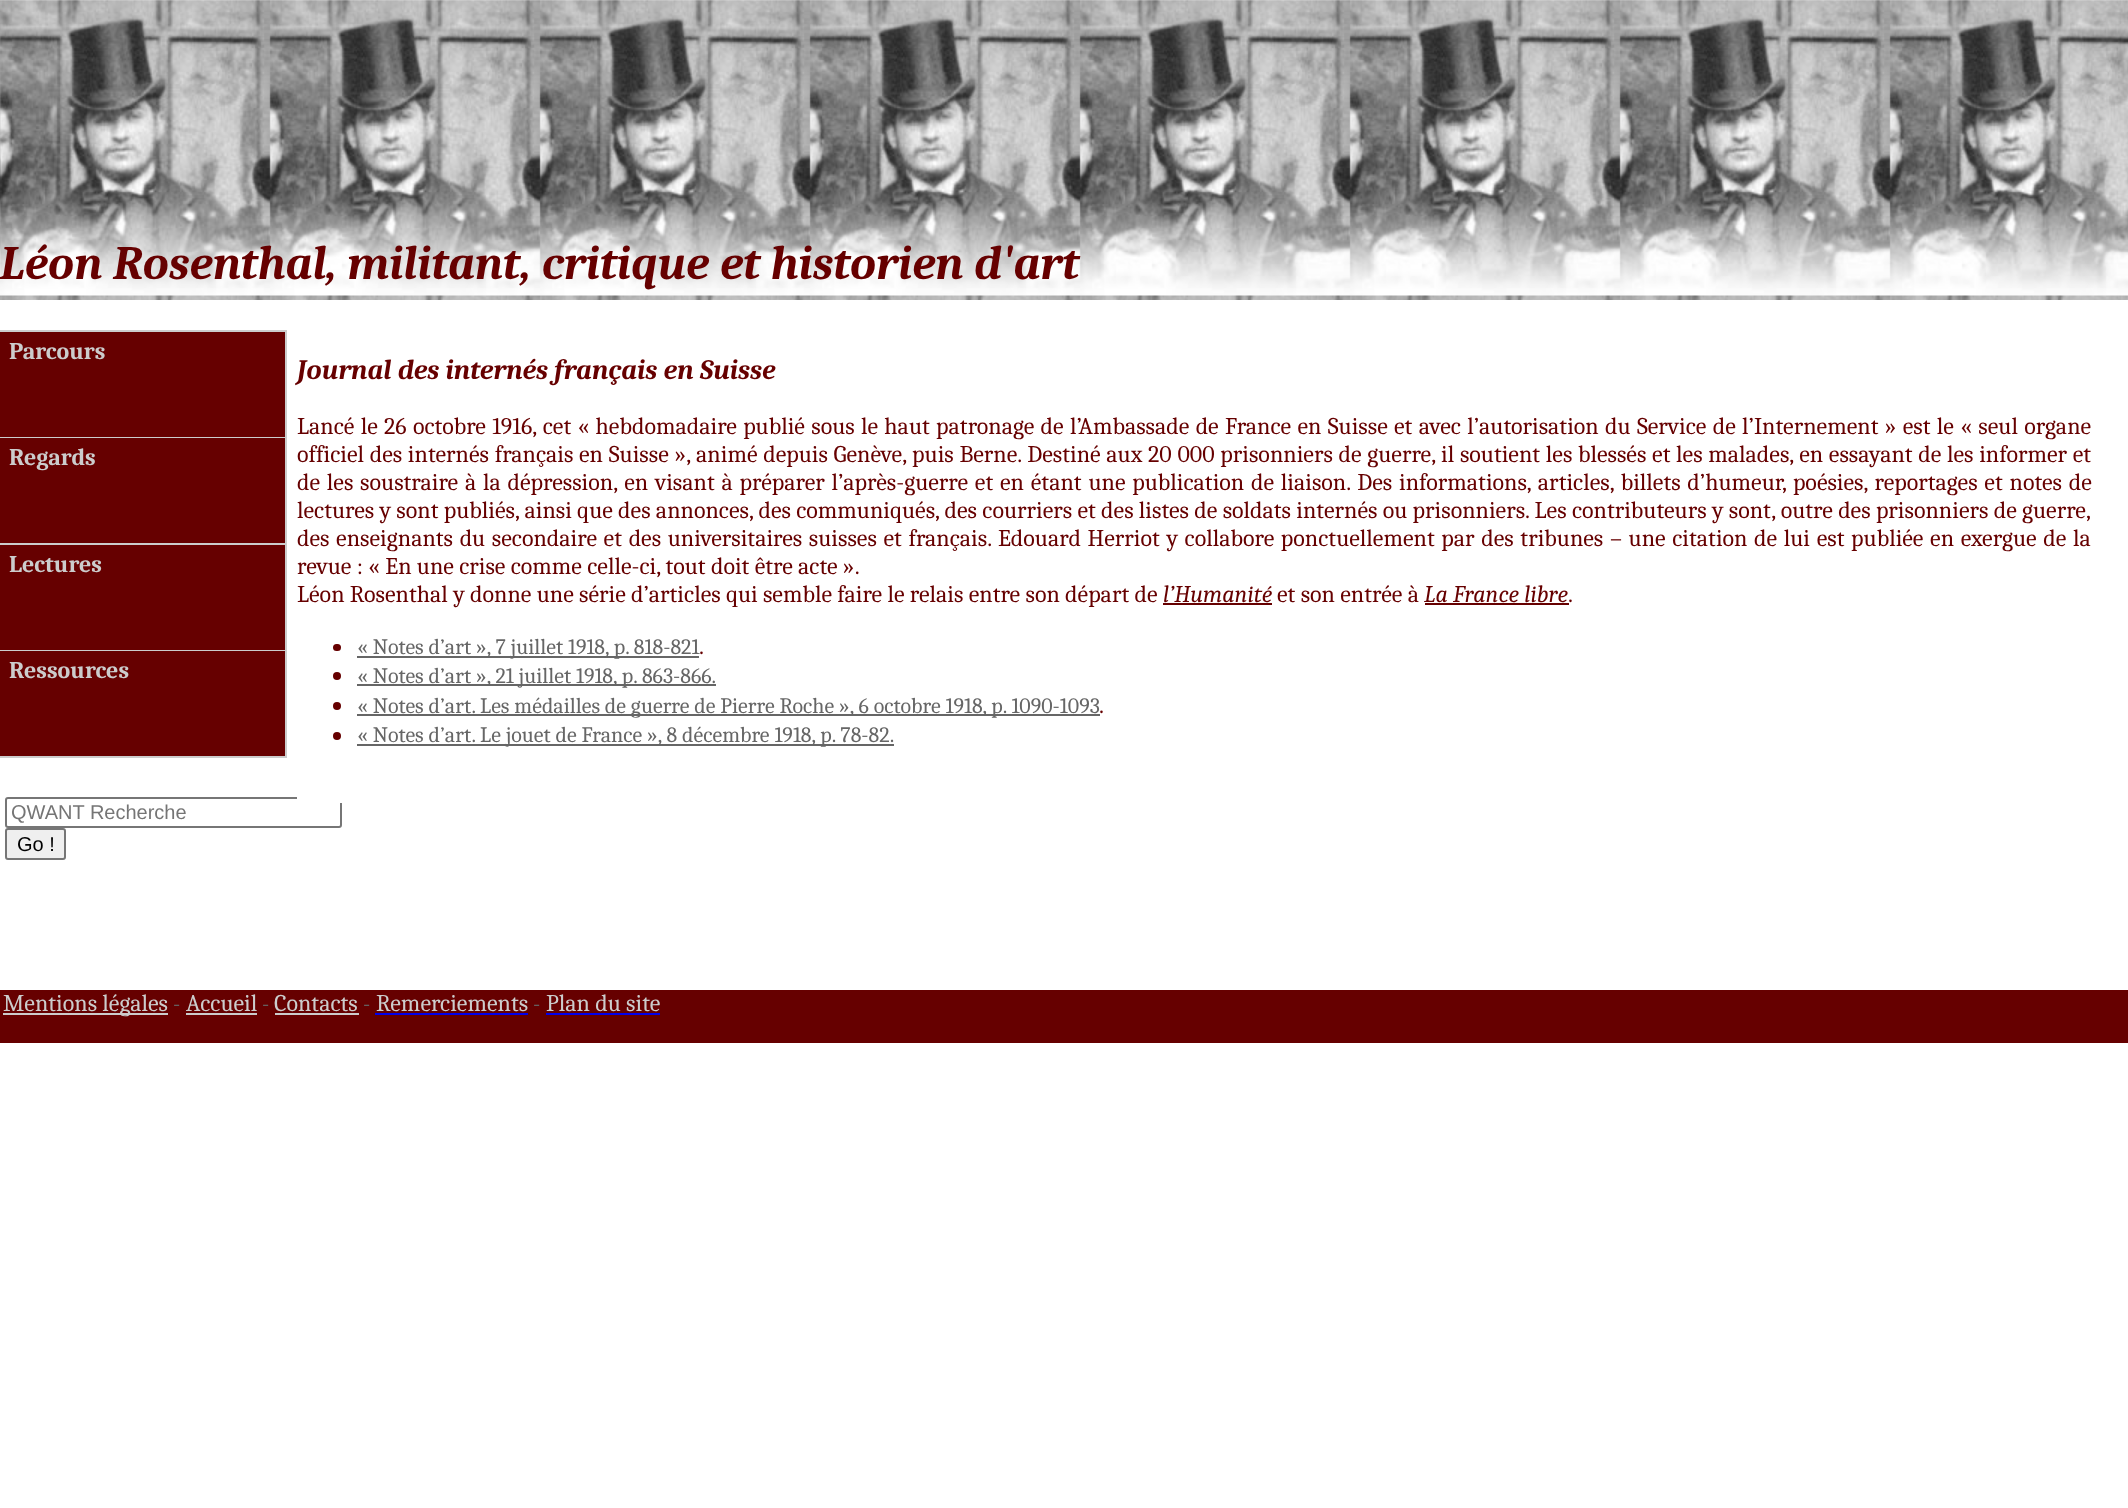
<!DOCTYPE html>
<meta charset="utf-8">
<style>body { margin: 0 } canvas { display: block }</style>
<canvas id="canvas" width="2128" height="1508"></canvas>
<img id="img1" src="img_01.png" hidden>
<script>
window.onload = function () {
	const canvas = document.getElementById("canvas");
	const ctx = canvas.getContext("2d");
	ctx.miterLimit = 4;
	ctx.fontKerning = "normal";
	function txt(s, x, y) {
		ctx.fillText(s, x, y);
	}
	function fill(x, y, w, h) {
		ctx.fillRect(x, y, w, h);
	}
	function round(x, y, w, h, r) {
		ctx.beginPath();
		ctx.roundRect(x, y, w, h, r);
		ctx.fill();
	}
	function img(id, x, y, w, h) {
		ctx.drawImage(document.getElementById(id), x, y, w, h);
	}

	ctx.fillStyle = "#FFFFFF";
	fill(0, 0, 2128, 1508);
	img("img1", 0, 0, 2128, 300);
	ctx.fillStyle = "#CCCCCC";
	fill(0, 330, 287, 428);
	ctx.fillStyle = "#660000";
	fill(0, 332, 285, 105);
	fill(0, 438, 285, 105);
	fill(0, 545, 285, 105);
	fill(0, 651, 285, 105);
	ctx.beginPath();
	ctx.roundRect(6, 798, 335, 29, 2);
	ctx.strokeStyle = "#767676";
	ctx.lineWidth = 2;
	ctx.stroke();
	ctx.fillStyle = "#FFFFFF";
	fill(297, 797, 45, 6);
	ctx.fillStyle = "#660000";
	fill(1163, 603, 109, 2);
	fill(1425, 603, 144, 2);
	round(333, 644, 8, 7, 3.5);
	ctx.fillStyle = "#666666";
	fill(357, 656, 342, 2);
	ctx.fillStyle = "#660000";
	ctx.beginPath();
	ctx.arc(337, 676, 4, 0, Math.PI * 2);
	ctx.fill();
	ctx.fillStyle = "#666666";
	fill(357, 684, 359, 2);
	ctx.fillStyle = "#660000";
	ctx.beginPath();
	ctx.arc(337, 706, 4, 0, Math.PI * 2);
	ctx.fill();
	ctx.fillStyle = "#666666";
	fill(357, 714, 743, 2);
	ctx.fillStyle = "#660000";
	ctx.beginPath();
	ctx.arc(337, 736, 4, 0, Math.PI * 2);
	ctx.fill();
	ctx.fillStyle = "#666666";
	fill(357, 744, 537, 2);
	ctx.fillStyle = "#660000";
	fill(0, 990, 2128, 53);
	ctx.fillStyle = "#CCCCCC";
	fill(3, 1013, 165, 2);
	fill(186, 1013, 71, 2);
	fill(275, 1013, 84, 2);
	ctx.fillStyle = "#0000EE";
	fill(375, 1013, 153, 2);
	fill(546, 1013, 114, 2);
	ctx.fillStyle = "#EFEFEF";
	ctx.beginPath();
	ctx.roundRect(6, 829, 59, 30, 2);
	ctx.fill();
	ctx.stroke();
	ctx.font = "italic bold 48px Caladea";
	ctx.fillStyle = "#660000";
	txt("Léon Rosenthal, militant, critique et historien d'art", 0, 279);
	ctx.font = "bold 24px Caladea";
	ctx.fillStyle = "#CCCCCC";
	txt("Parcours", 9, 359);
	txt("Regards", 9, 465);
	txt("Lectures", 9, 572);
	txt("Ressources", 9, 678);
	ctx.font = "italic bold 28.1px Caladea";
	ctx.fillStyle = "#660000";
	txt("Journal des internés français en Suisse", 297, 379);
	ctx.wordSpacing = "1px";
	ctx.font = "24px Caladea";
	txt("Lancé le 26 octobre 1916, cet « hebdomadaire publié sous le haut patronage de l’Ambassade de France en Suisse et avec l’autorisation du Service de l’Internement » est le « seul organe", 297, 434);
	ctx.wordSpacing = "0.4px";
	txt("officiel des internés français en Suisse », animé depuis Genève, puis Berne. Destiné aux 20 000 prisonniers de guerre, il soutient les blessés et les malades, en essayant de les informer et", 297, 462);
	ctx.wordSpacing = "1.5px";
	txt("de les soustraire à la dépression, en visant à préparer l’après-guerre et en étant une publication de liaison. Des informations, articles, billets d’humeur, poésies, reportages et notes de", 297, 490);
	ctx.wordSpacing = "0px";
	txt("lectures y sont publiés, ainsi que des annonces, des communiqués, des courriers et des listes de soldats internés ou prisonniers. Les contributeurs y sont, outre des prisonniers de guerre,", 297, 518);
	ctx.wordSpacing = "1.35px";
	txt("des enseignants du secondaire et des universitaires suisses et français. Edouard Herriot y collabore ponctuellement par des tribunes – une citation de lui est publiée en exergue de la", 297, 546);
	ctx.wordSpacing = "0px";
	txt("revue : « En une crise comme celle-ci, tout doit être acte ».", 297, 574);
	txt("Léon Rosenthal y donne une série d’articles qui semble faire le relais entre son départ de", 297, 602);
	ctx.font = "italic 24px Caladea";
	txt("l’Humanité", 1163, 602);
	ctx.font = "24px Caladea";
	txt("et son entrée à", 1277, 602);
	ctx.font = "italic 24px Caladea";
	txt("La France libre", 1424, 602);
	ctx.font = "24px Caladea";
	txt(".", 1568, 602);
	ctx.font = "22px Caladea";
	ctx.fillStyle = "#666666";
	txt("« Notes d’art », 7 juillet 1918, p. 818-821", 357, 654);
	ctx.font = "24px Caladea";
	ctx.fillStyle = "#660000";
	txt(".", 699, 654);
	ctx.font = "22px Caladea";
	ctx.fillStyle = "#666666";
	txt("« Notes d’art », 21 juillet 1918, p. 863-866.", 357, 683);
	txt("« Notes d’art. Les médailles de guerre de Pierre Roche », 6 octobre 1918, p. 1090-1093", 357, 713);
	ctx.font = "24px Caladea";
	ctx.fillStyle = "#660000";
	txt(".", 1099, 713);
	ctx.font = "22px Caladea";
	ctx.fillStyle = "#666666";
	txt("« Notes d’art. Le jouet de France », 8 décembre 1918, p. 78-82.", 357, 742);
	ctx.font = "24px Caladea";
	ctx.fillStyle = "#CCCCCC";
	txt("Mentions légales", 3, 1011);
	ctx.font = "22px Caladea";
	ctx.fillStyle = "#666666";
	txt("-", 173, 1011);
	ctx.font = "24px Caladea";
	ctx.fillStyle = "#CCCCCC";
	txt("Accueil", 186, 1011);
	ctx.font = "22px Caladea";
	ctx.fillStyle = "#666666";
	txt("-", 262, 1011);
	ctx.font = "24px Caladea";
	ctx.fillStyle = "#CCCCCC";
	txt("Contacts", 274, 1011);
	ctx.font = "22px Caladea";
	ctx.fillStyle = "#666666";
	txt("-", 363, 1011);
	ctx.font = "24px Caladea";
	ctx.fillStyle = "#CCCCCC";
	txt("Remerciements", 376, 1011);
	ctx.font = "22px Caladea";
	ctx.fillStyle = "#666666";
	txt("-", 533, 1011);
	ctx.font = "24px Caladea";
	ctx.fillStyle = "#CCCCCC";
	txt("Plan du site", 546, 1011);
	ctx.font = "20px Liberation Sans";
	ctx.fillStyle = "#757575";
	txt("QWANT Recherche", 11, 819);
	ctx.fillStyle = "#000000";
	txt("Go !", 17, 851);
};
</script>
